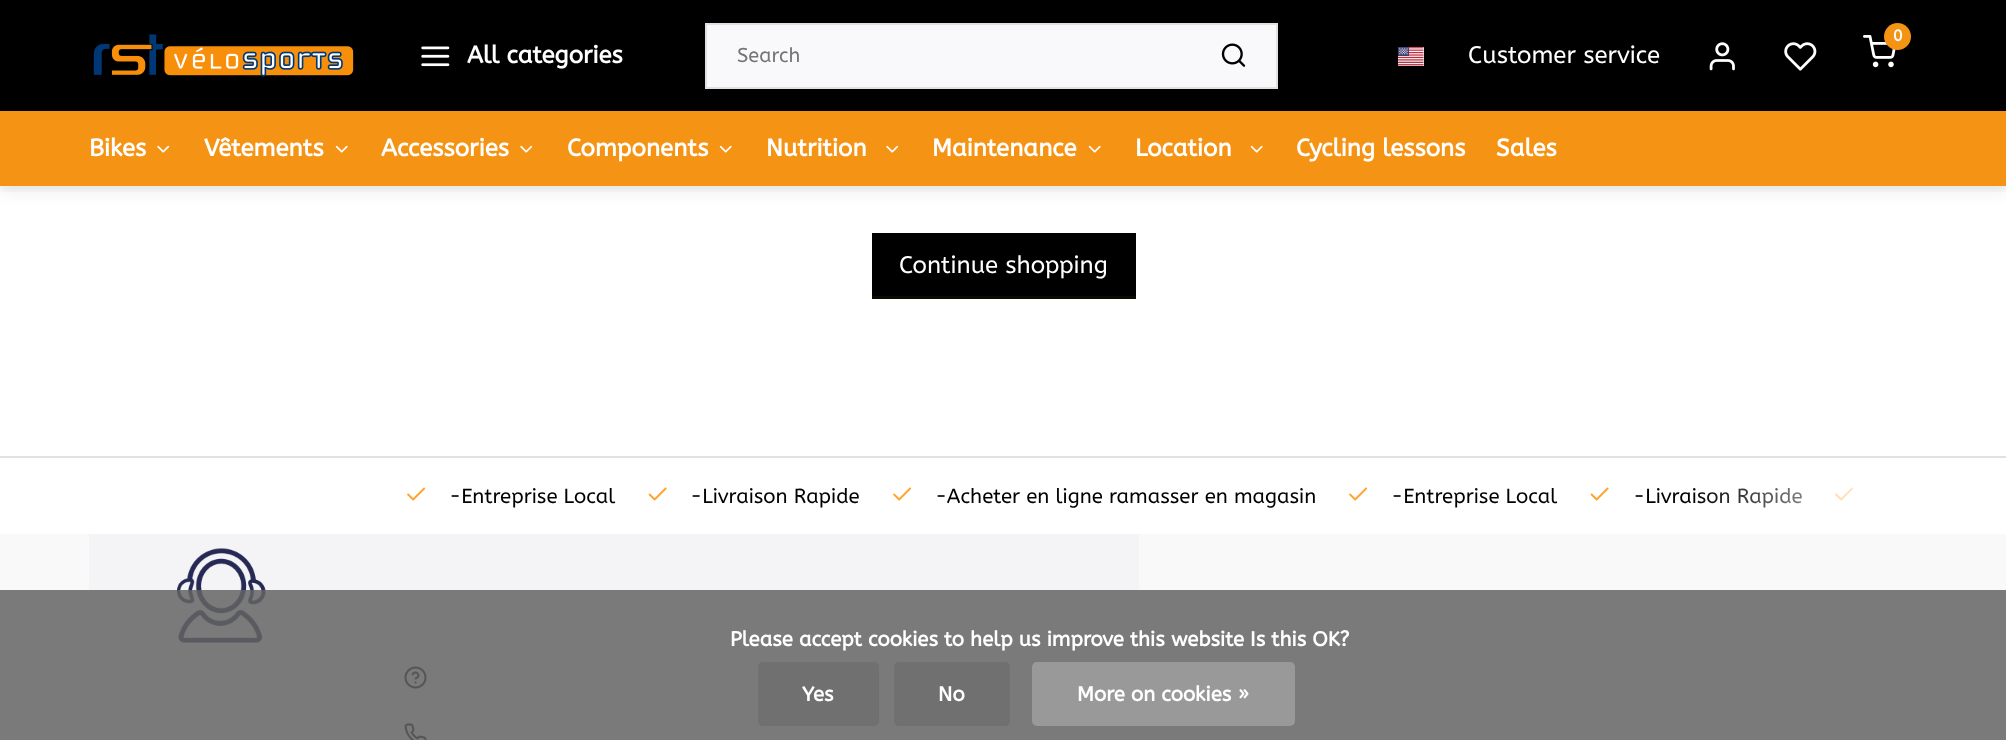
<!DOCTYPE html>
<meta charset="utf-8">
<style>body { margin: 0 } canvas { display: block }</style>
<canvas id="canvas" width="2006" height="740"></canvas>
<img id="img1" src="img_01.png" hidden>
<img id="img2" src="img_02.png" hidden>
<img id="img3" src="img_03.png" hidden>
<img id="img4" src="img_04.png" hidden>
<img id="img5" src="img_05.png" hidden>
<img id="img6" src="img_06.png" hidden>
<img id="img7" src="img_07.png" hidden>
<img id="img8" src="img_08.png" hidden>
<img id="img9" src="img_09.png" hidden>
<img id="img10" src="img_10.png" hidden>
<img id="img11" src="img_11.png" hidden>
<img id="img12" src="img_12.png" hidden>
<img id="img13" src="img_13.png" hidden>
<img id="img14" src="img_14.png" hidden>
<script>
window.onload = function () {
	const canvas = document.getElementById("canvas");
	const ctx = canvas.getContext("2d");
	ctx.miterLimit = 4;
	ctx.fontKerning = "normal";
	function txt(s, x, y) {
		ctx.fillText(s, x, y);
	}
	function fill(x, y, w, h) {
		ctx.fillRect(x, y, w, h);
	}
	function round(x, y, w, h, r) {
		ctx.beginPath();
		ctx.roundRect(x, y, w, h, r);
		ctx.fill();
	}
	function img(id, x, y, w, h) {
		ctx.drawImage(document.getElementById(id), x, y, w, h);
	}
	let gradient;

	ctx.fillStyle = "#FFFFFF";
	fill(0, 0, 2006, 740);
	ctx.fillStyle = "rgba(0, 0, 0, 0.05)";
	ctx.filter = "blur(7.5px)";
	ctx.beginPath();
	ctx.rect(0, 8, 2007, 186);
	ctx.fill();
	ctx.filter = "none";
	ctx.fillStyle = "#000000";
	fill(0, 0, 2006, 111);
	ctx.save();
	ctx.beginPath();
	ctx.rect(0, 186, 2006, 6);
	ctx.clip();
	ctx.fillStyle = "rgba(0, 0, 0, 0.05)";
	ctx.filter = "blur(3px)";
	ctx.beginPath();
	ctx.rect(0, 5, 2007, 186);
	ctx.fill();
	ctx.filter = "none";
	ctx.restore();
	img("img1", 93, 34, 261, 43);
	img("img2", 421, 46, 29, 21);
	ctx.fillStyle = "#F9F9FB";
	ctx.beginPath();
	ctx.rect(706, 24, 571, 64);
	ctx.fill();
	ctx.strokeStyle = "#E1E1E1";
	ctx.lineWidth = 2;
	ctx.stroke();
	img("img3", 1221, 43, 25, 24);
	img("img4", 1863, 35, 33, 33);
	ctx.fillStyle = "#F59414";
	ctx.beginPath();
	ctx.arc(1897.5, 36.5, 13.5, 0, Math.PI * 2);
	ctx.fill();
	img("img5", 1398, 47, 26, 19);
	img("img6", 1709, 42, 26, 29);
	img("img7", 1784, 42, 33, 29);
	fill(0, 111, 2006, 75);
	img("img8", 157, 145, 13, 8);
	img("img9", 335, 145, 13, 8);
	img("img8", 520, 145, 13, 8);
	img("img9", 719, 145, 13, 8);
	img("img8", 886, 145, 13, 8);
	img("img9", 1088, 145, 13, 8);
	img("img9", 1250, 145, 13, 8);
	ctx.fillStyle = "#000000";
	fill(872, 233, 264, 63);
	ctx.fillStyle = "#0B0B00";
	fill(872, 296, 264, 3);
	ctx.fillStyle = "#E1E1E1";
	fill(0, 456, 2006, 2);
	img("img10", 407, 487, 19, 14);
	img("img11", 648, 487, 19, 14);
	img("img10", 893, 487, 19, 14);
	img("img10", 1349, 487, 19, 14);
	img("img11", 1590, 487, 19, 14);
	img("img10", 1835, 487, 19, 14);
	ctx.fillStyle = "#F9F9F9";
	fill(0, 534, 2006, 206);
	ctx.fillStyle = "#F4F4F6";
	fill(89, 534, 1050, 206);
	img("img12", 404, 666, 23, 23);
	img("img13", 404, 723, 23, 17);
	img("img14", 177, 548, 89, 95);
	ctx.fillStyle = "rgba(100, 100, 100, 0.85)";
	fill(0, 590, 2006, 150);
	ctx.fillStyle = "#707070";
	round(758, 662, 121, 64, 5);
	round(894, 662, 116, 64, 5);
	ctx.fillStyle = "#999999";
	round(1032, 662, 263, 64, 5);
	ctx.font = "bold 24px ABeeZee";
	ctx.fillStyle = "#FFFFFF";
	txt("All categories", 467, 63);
	ctx.font = "20px ABeeZee";
	ctx.fillStyle = "#757575";
	txt("Search", 737, 62);
	ctx.font = "bold 16px ABeeZee";
	ctx.fillStyle = "#FFFFFF";
	txt("0", 1893, 41);
	ctx.font = "24px ABeeZee";
	txt("Customer service", 1468, 63);
	ctx.font = "bold 24px ABeeZee";
	txt("Bikes", 89, 156);
	txt("Vêtements", 204, 156);
	txt("Accessories", 381, 156);
	txt("Components", 567, 156);
	txt("Nutrition", 766, 156);
	txt("Maintenance", 932, 156);
	txt("Location", 1135, 156);
	txt("Cycling lessons", 1296, 156);
	txt("Sales", 1496, 156);
	ctx.font = "24px ABeeZee";
	txt("Continue shopping", 899, 273);
	ctx.font = "20.4px ABeeZee";
	ctx.fillStyle = "#000000";
	txt("-Entreprise Local", 449, 503);
	txt("-Livraison Rapide", 690, 503);
	txt("-Acheter en ligne ramasser en magasin", 935, 503);
	txt("-Entreprise Local", 1391, 503);
	txt("-Livraison Rapide", 1633, 503);
	gradient = ctx.createLinearGradient(1692, 496, 1919, 496);
	gradient.addColorStop(0, "rgba(255, 255, 255, 0)");
	gradient.addColorStop(1, "#FFFFFF");
	ctx.fillStyle = gradient;
	fill(1698, 487, 156, 21);
	ctx.font = "bold 20.4px ABeeZee";
	ctx.fillStyle = "#FFFFFF";
	txt("Please accept cookies to help us improve this website Is this OK?", 730, 646);
	txt("Yes", 802, 701);
	txt("No", 938, 701);
	txt("More on cookies »", 1077, 701);
};
</script>
